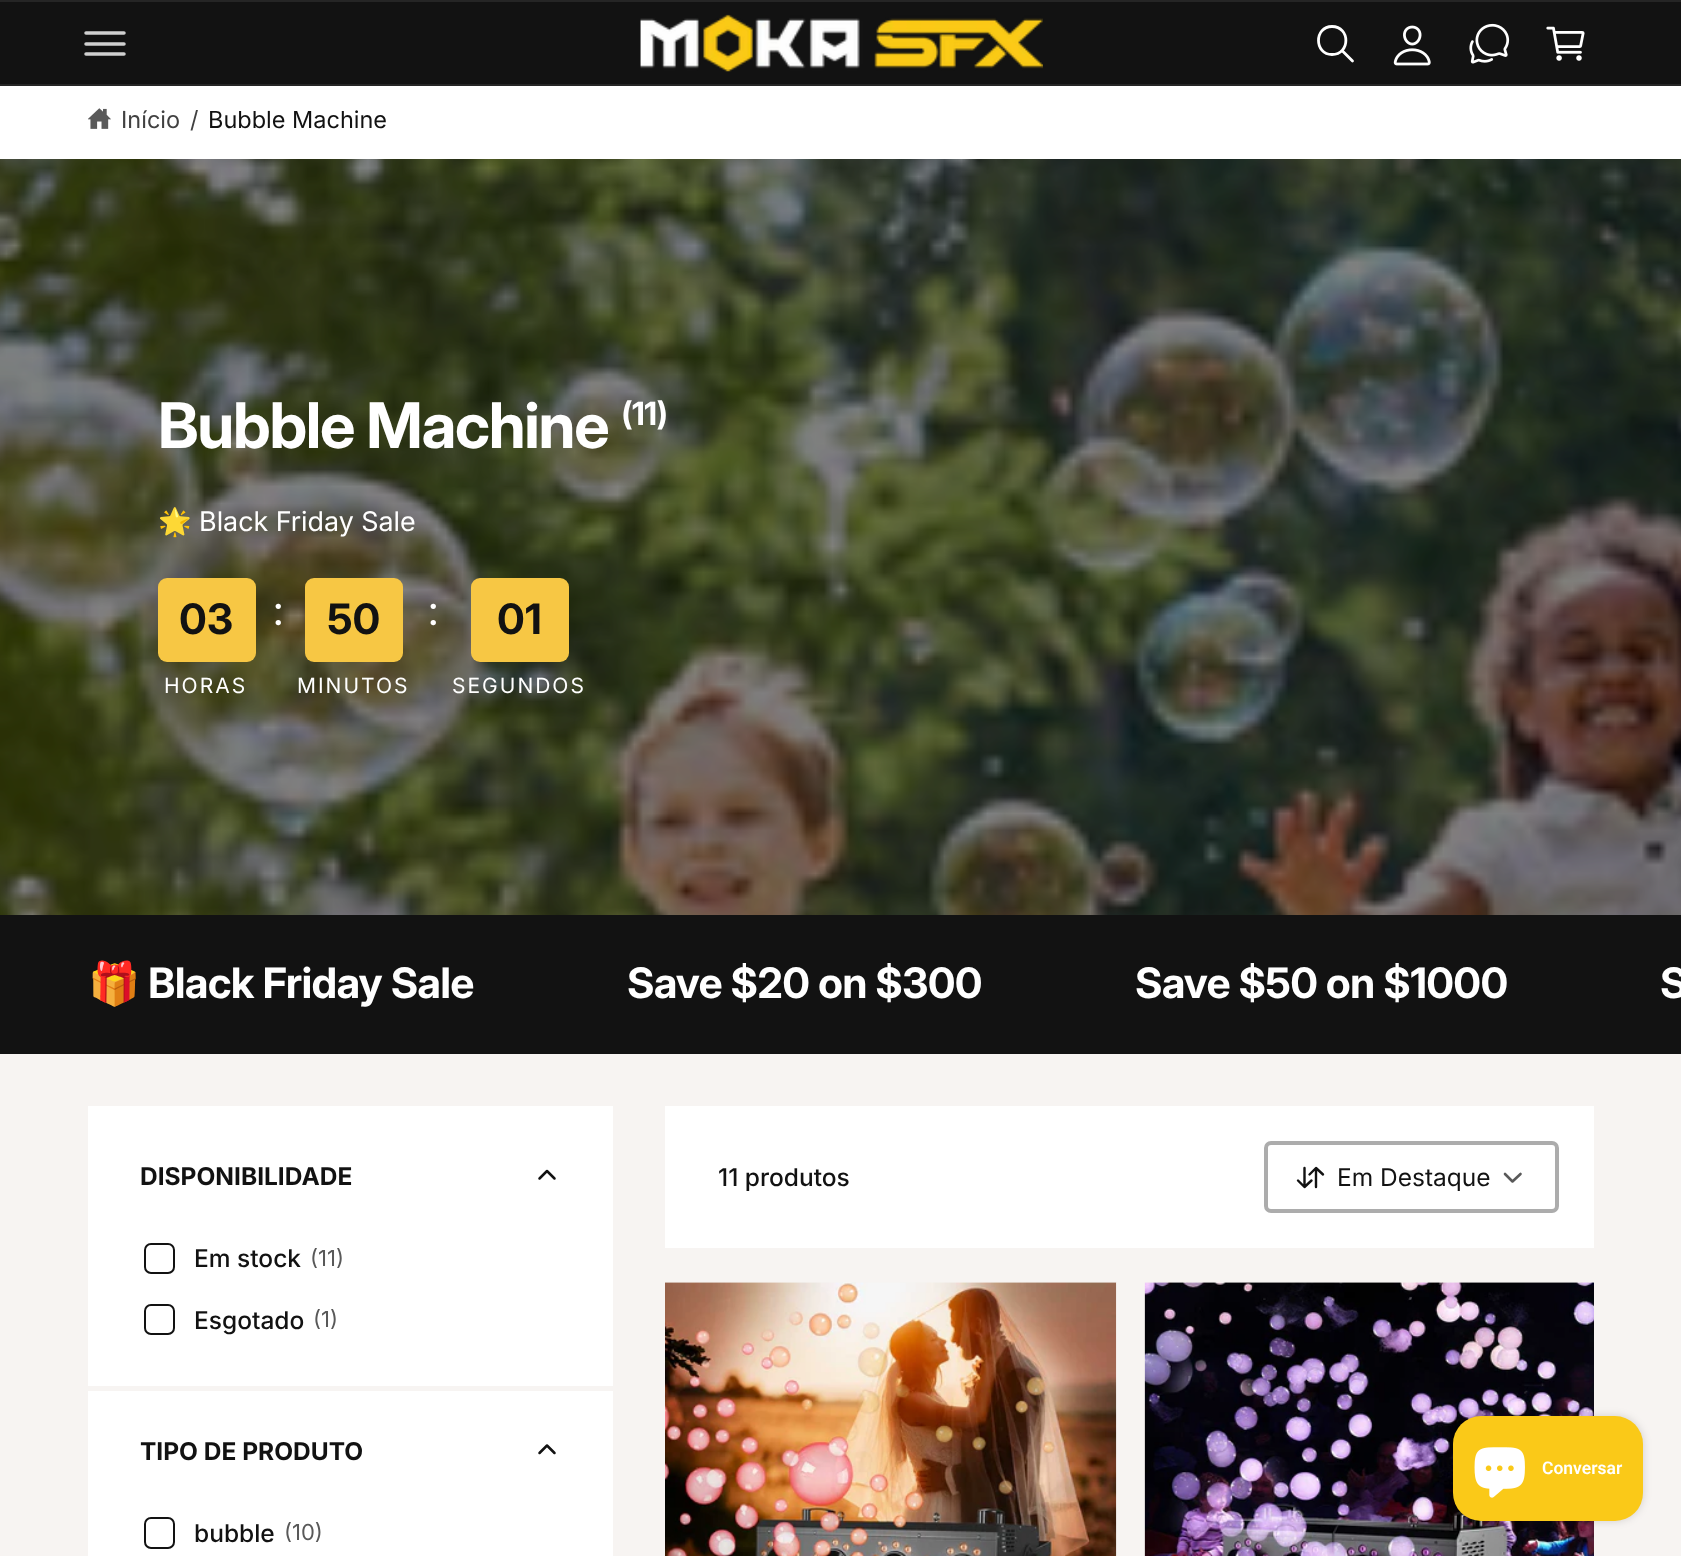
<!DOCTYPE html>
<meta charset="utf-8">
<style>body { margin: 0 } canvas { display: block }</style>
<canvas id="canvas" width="1681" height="1556"></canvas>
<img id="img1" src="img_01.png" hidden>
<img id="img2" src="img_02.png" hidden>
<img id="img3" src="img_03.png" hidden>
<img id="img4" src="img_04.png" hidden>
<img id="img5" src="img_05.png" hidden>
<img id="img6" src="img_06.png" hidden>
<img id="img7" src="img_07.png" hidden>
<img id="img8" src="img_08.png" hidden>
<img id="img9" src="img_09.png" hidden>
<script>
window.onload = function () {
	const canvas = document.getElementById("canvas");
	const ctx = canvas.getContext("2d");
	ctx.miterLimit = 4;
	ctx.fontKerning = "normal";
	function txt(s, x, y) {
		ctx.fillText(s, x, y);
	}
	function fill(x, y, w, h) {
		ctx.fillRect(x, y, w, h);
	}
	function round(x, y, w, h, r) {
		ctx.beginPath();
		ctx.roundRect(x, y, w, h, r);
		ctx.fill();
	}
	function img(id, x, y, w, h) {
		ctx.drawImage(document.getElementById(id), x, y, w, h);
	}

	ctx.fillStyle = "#F7F4F2";
	fill(0, 0, 1681, 1556);
	ctx.fillStyle = "#121212";
	fill(0, 2, 1681, 82);
	ctx.fillStyle = "#252525";
	fill(0, 0, 1681, 2);
	fill(0, 84, 1681, 2);
	ctx.beginPath();
	ctx.moveTo(86, 33);
	ctx.lineTo(124, 33);
	ctx.moveTo(86, 44);
	ctx.lineTo(124, 44);
	ctx.moveTo(86, 54);
	ctx.lineTo(124, 54);
	ctx.strokeStyle = "#D0D0D0";
	ctx.lineWidth = 3.5;
	ctx.lineCap = "round";
	ctx.stroke();
	img("img1", 640, 14, 403, 58);
	ctx.beginPath();
	ctx.moveTo(1332, 26.5);
	ctx.bezierCurveTo(1314, 26.5, 1314, 54.5, 1332, 54.5);
	ctx.bezierCurveTo(1350.5, 54.5, 1350.5, 26.5, 1332, 26.5);
	ctx.closePath();
	ctx.strokeStyle = "#FFFFFF";
	ctx.lineWidth = 2.8;
	ctx.lineCap = "butt";
	ctx.stroke();
	ctx.beginPath();
	ctx.moveTo(1342.5, 51);
	ctx.lineTo(1352.5, 61);
	ctx.lineCap = "round";
	ctx.stroke();
	img("img2", 1393, 25, 38, 41);
	img("img3", 1469, 23, 41, 41);
	img("img4", 1546, 26, 39, 35);
	ctx.fillStyle = "#FFFFFF";
	fill(0, 86, 1681, 73);
	img("img5", 88, 108, 23, 21);
	img("img6", 0, 159, 1681, 756);
	ctx.fillStyle = "#F7C744";
	round(158, 578, 98, 84, 9);
	round(305, 578, 98, 84, 9);
	round(471, 578, 98, 84, 9);
	ctx.fillStyle = "#121212";
	fill(0, 915, 1681, 139);
	ctx.fillStyle = "#FFFFFF";
	fill(88, 1106, 525, 450);
	ctx.beginPath();
	ctx.moveTo(554.5, 1178.5);
	ctx.lineTo(547, 1171);
	ctx.lineTo(539.5, 1178.5);
	ctx.strokeStyle = "#121212";
	ctx.lineWidth = 2.5;
	ctx.lineJoin = "round";
	ctx.stroke();
	ctx.beginPath();
	ctx.roundRect(145, 1244, 29, 29, 6);
	ctx.lineWidth = 2;
	ctx.lineJoin = "miter";
	ctx.stroke();
	ctx.beginPath();
	ctx.roundRect(145, 1305, 29, 29, 6);
	ctx.stroke();
	ctx.fillStyle = "#F7F4F2";
	fill(88, 1386, 525, 5);
	ctx.beginPath();
	ctx.moveTo(554.5, 1453);
	ctx.lineTo(547, 1445.5);
	ctx.lineTo(539.5, 1453);
	ctx.lineWidth = 2.5;
	ctx.lineJoin = "round";
	ctx.stroke();
	ctx.beginPath();
	ctx.roundRect(145, 1518, 29, 30, 6);
	ctx.lineWidth = 2;
	ctx.lineJoin = "miter";
	ctx.stroke();
	ctx.fillStyle = "#FFFFFF";
	fill(665, 1106, 929, 142);
	ctx.beginPath();
	ctx.moveTo(1323, 1174.5);
	ctx.lineTo(1316, 1168);
	ctx.lineTo(1309.5, 1174.5);
	ctx.moveTo(1316, 1169);
	ctx.lineTo(1316, 1187);
	ctx.moveTo(1298, 1180.5);
	ctx.lineTo(1304.5, 1187);
	ctx.lineTo(1311.5, 1180.5);
	ctx.moveTo(1304.5, 1186);
	ctx.lineTo(1304.5, 1168);
	ctx.lineWidth = 2.4;
	ctx.lineJoin = "round";
	ctx.stroke();
	ctx.beginPath();
	ctx.moveTo(1505, 1174);
	ctx.lineTo(1512.5, 1181.5);
	ctx.lineTo(1520.5, 1174);
	ctx.strokeStyle = "#595959";
	ctx.lineWidth = 2.6;
	ctx.stroke();
	ctx.beginPath();
	ctx.roundRect(1266, 1143, 291, 68, 5);
	ctx.strokeStyle = "#ACACAC";
	ctx.lineWidth = 4;
	ctx.lineJoin = "miter";
	ctx.stroke();
	fill(1116, 1283, 1, 273);
	img("img7", 665, 1282, 452, 274);
	img("img8", 1144, 1282, 450, 274);
	ctx.fillStyle = "rgba(0, 0, 0, 0.15)";
	ctx.filter = "blur(4.5px)";
	ctx.beginPath();
	ctx.roundRect(1453, 1416, 190, 105, 28);
	ctx.fill();
	ctx.filter = "none";
	ctx.fillStyle = "#FAC918";
	round(1453, 1416, 190, 105, 28);
	img("img9", 1474, 1447, 51, 51);
	ctx.font = "23.5px Inter";
	ctx.fillStyle = "#414141";
	txt("Início", 121, 128);
	txt("/", 190, 128);
	ctx.fillStyle = "#121212";
	txt("Bubble Machine", 208, 128);
	ctx.letterSpacing = "-1.25px";
	ctx.font = "bold 63px Inter";
	ctx.fillStyle = "#FFFFFF";
	txt("Bubble Machine", 158, 448);
	ctx.font = "bold 32px 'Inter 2'";
	txt("(11)", 621, 425);
	ctx.letterSpacing = "0px";
	ctx.font = "27px Noto Color Emoji";
	txt("🌟", 158, 531);
	ctx.font = "27px 'Inter 2'";
	txt("Black Friday Sale", 199, 531);
	ctx.font = "bold 42px 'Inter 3'";
	ctx.fillStyle = "#121212";
	txt("03", 179, 634);
	ctx.letterSpacing = "2px";
	ctx.font = "21px Inter";
	ctx.fillStyle = "#FFFFFF";
	txt("HORAS", 164, 693);
	ctx.letterSpacing = "0px";
	ctx.font = "42px 'Inter 3'";
	txt(":", 273, 625);
	ctx.font = "bold 42px 'Inter 3'";
	ctx.fillStyle = "#121212";
	txt("50", 327, 634);
	ctx.letterSpacing = "2px";
	ctx.font = "21px Inter";
	ctx.fillStyle = "#FFFFFF";
	txt("MINUTOS", 297, 693);
	ctx.letterSpacing = "0px";
	ctx.font = "42px 'Inter 3'";
	txt(":", 428, 625);
	ctx.font = "bold 42px 'Inter 3'";
	ctx.fillStyle = "#121212";
	txt("01", 497, 634);
	ctx.letterSpacing = "2px";
	ctx.font = "21px Inter";
	ctx.fillStyle = "#FFFFFF";
	txt("SEGUNDOS", 452, 693);
	ctx.letterSpacing = "-0.75px";
	ctx.font = "bold 42px Noto Color Emoji";
	txt("🎁", 88, 998);
	ctx.font = "bold 42px 'Inter 3'";
	txt("Black Friday Sale", 148, 998);
	txt("Save $20 on $300", 627, 998);
	txt("Save $50 on $1000", 1135, 998);
	txt("S", 1660, 998);
	ctx.letterSpacing = "0px";
	ctx.font = "bold 24.5px 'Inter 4'";
	ctx.fillStyle = "#121212";
	txt("DISPONIBILIDADE", 140, 1185);
	ctx.font = "500 24.5px Inter";
	txt("Em stock", 194, 1267);
	ctx.font = "22px Inter";
	ctx.fillStyle = "#595959";
	txt("(11)", 310, 1266);
	ctx.font = "500 24.5px Inter";
	ctx.fillStyle = "#121212";
	txt("Esgotado", 194, 1329);
	ctx.font = "22px Inter";
	ctx.fillStyle = "#595959";
	txt("(1)", 313, 1327);
	ctx.font = "bold 24.5px 'Inter 4'";
	ctx.fillStyle = "#121212";
	txt("TIPO DE PRODUTO", 140, 1460);
	ctx.font = "500 24.5px Inter";
	txt("bubble", 194, 1542);
	ctx.font = "22px Inter";
	ctx.fillStyle = "#595959";
	txt("(10)", 284, 1540);
	ctx.font = "500 24.5px Inter";
	ctx.fillStyle = "#121212";
	txt("11 produtos", 718, 1186);
	ctx.font = "24.5px Inter";
	txt("Em Destaque", 1337, 1186);
	ctx.font = "600 17.5px Roboto";
	ctx.fillStyle = "#FFFFFF";
	txt("Conversar", 1542, 1474);
};
</script>
